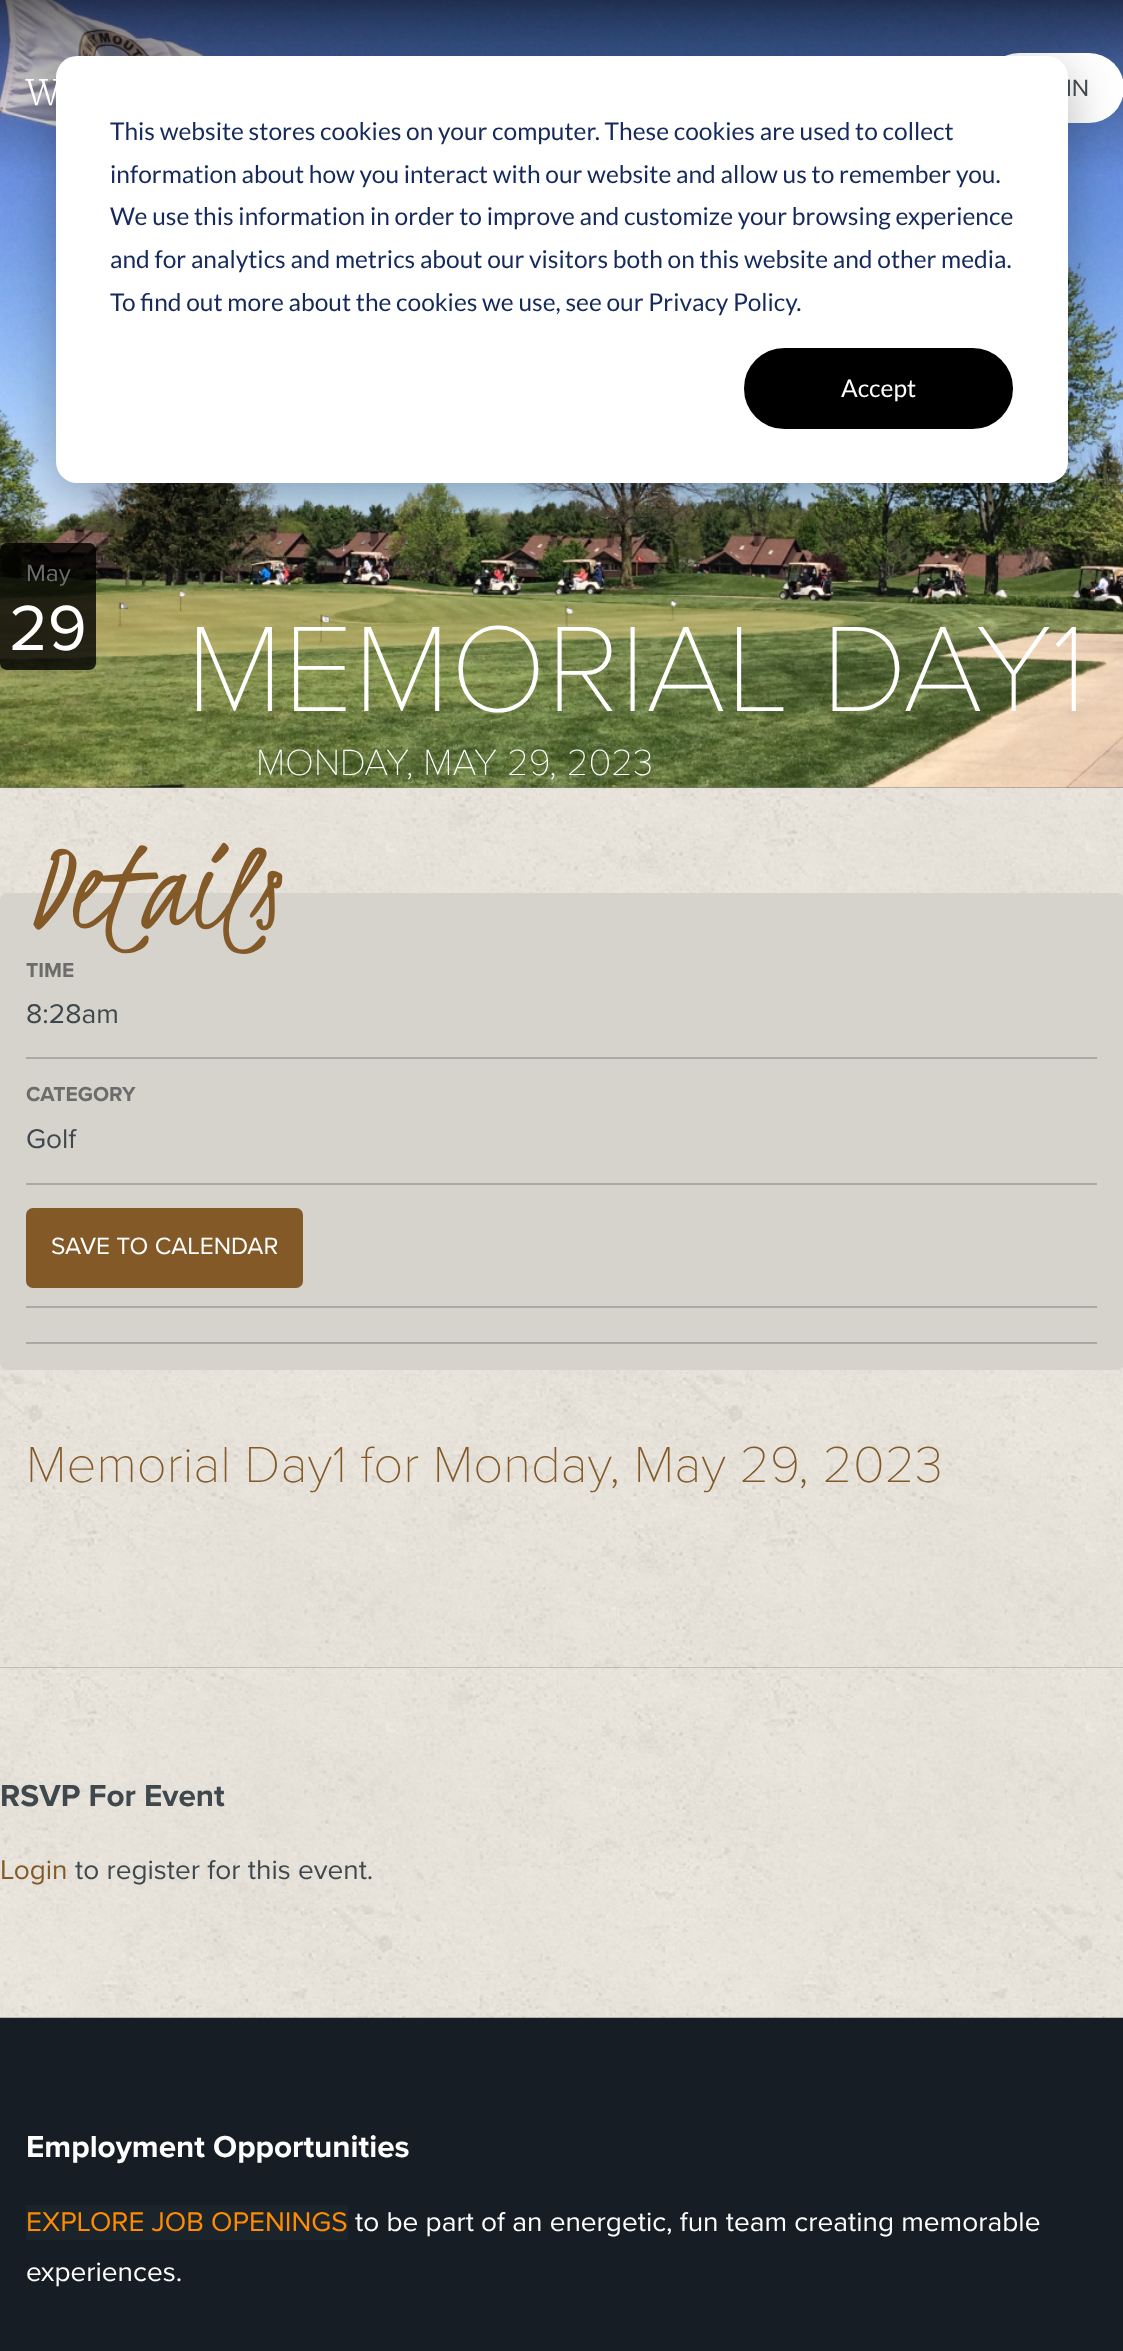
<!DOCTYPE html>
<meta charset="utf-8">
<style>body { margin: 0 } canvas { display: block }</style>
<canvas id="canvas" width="1123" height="2351"></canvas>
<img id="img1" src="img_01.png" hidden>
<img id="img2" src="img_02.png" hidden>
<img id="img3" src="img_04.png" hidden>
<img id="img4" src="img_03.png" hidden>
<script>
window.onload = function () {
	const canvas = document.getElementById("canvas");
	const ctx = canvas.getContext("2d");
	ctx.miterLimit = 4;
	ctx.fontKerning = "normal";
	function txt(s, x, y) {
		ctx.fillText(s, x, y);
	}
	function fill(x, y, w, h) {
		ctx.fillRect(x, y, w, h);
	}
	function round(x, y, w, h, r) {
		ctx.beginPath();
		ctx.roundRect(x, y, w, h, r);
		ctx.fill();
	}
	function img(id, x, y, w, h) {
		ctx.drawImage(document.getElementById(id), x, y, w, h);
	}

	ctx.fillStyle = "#FFFFFF";
	fill(0, 0, 1123, 2351);
	img("img1", 0, 787, 1123, 1231);
	img("img2", 0, 787, 1123, 881);
	img("img3", 0, 0, 1123, 788);
	round(984, 53, 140, 70, 35);
	ctx.fillStyle = "rgba(0, 0, 0, 0.8)";
	round(0, 543, 96, 127, 7);
	ctx.fillStyle = "rgba(0, 0, 0, 0.28)";
	ctx.filter = "blur(24.5px)";
	ctx.beginPath();
	ctx.roundRect(56, 70, 1012, 427, 21);
	ctx.fill();
	ctx.filter = "none";
	ctx.fillStyle = "#D5D3CC";
	round(0, 893, 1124, 477, 7);
	ctx.fillStyle = "#AAA9A3";
	fill(26, 1057, 1071, 2);
	fill(26, 1183, 1071, 2);
	fill(26, 1306, 1071, 2);
	ctx.fillStyle = "#825927";
	round(26, 1208, 277, 80, 7);
	ctx.fillStyle = "#AAA9A3";
	fill(26, 1342, 1071, 2);
	img("img4", 0, 1667, 1123, 351);
	ctx.fillStyle = "#161D24";
	fill(0, 2018, 1123, 333);
	ctx.fillStyle = "#1C242B";
	fill(26, 2205, 322, 35);
	ctx.letterSpacing = "16px";
	ctx.font = "300 35px Merriweather";
	ctx.fillStyle = "#FFFFFF";
	txt("W", 26, 105);
	ctx.letterSpacing = "0px";
	ctx.font = "24.5px Proxima Nova";
	ctx.fillStyle = "#3F484D";
	txt("IN", 1066, 96);
	ctx.fillStyle = "#FFFFFF";
	round(56, 56, 1012, 427, 21);
	ctx.font = "24.5px Lato";
	ctx.fillStyle = "#15295A";
	txt("This website stores cookies on your computer. These cookies are used to collect", 110, 140);
	txt("information about how you interact with our website and allow us to remember you.", 110, 183);
	txt("We use this information in order to improve and customize your browsing experience", 110, 225);
	txt("and for analytics and metrics about our visitors both on this website and other media.", 110, 268);
	txt("To find out more about the cookies we use, see our Privacy Policy.", 110, 311);
	ctx.fillStyle = "#000000";
	ctx.beginPath();
	ctx.roundRect(745, 349, 267, 79, 39.5);
	ctx.fill();
	ctx.strokeStyle = "#000000";
	ctx.lineWidth = 2;
	ctx.stroke();
	ctx.fillStyle = "#FFFFFF";
	txt("Accept", 841, 397);
	ctx.font = "24.5px Proxima Nova";
	ctx.fillStyle = "#6C6C6A";
	txt("May", 26, 581);
	ctx.font = "66px Proxima Nova";
	ctx.fillStyle = "#FFFFFF";
	txt("29", 9, 650);
	ctx.font = "140px Kristi";
	ctx.fillStyle = "#825927";
	txt("Details", 26, 926);
	ctx.font = "bold 21px Proxima Nova";
	ctx.fillStyle = "#6C6C6A";
	txt("TIME", 26, 977);
	ctx.font = "28px Proxima Nova";
	ctx.fillStyle = "#3F484D";
	txt("8:28am", 26, 1023);
	ctx.font = "bold 21px Proxima Nova";
	ctx.fillStyle = "#6C6C6A";
	txt("CATEGORY", 26, 1101);
	ctx.font = "28px Proxima Nova";
	ctx.fillStyle = "#3F484D";
	txt("Golf", 26, 1148);
	ctx.font = "24.5px Proxima Nova";
	ctx.fillStyle = "#FFFFFF";
	txt("SAVE TO CALENDAR", 51, 1254);
	ctx.font = "100 52.5px Proxima Nova";
	ctx.fillStyle = "#825927";
	txt("Memorial Day1 for Monday, May 29, 2023", 26, 1482);
	ctx.font = "bold 31.5px Proxima Nova";
	ctx.fillStyle = "#3F484D";
	txt("RSVP For Event", 0, 1806);
	ctx.font = "28px Proxima Nova";
	ctx.fillStyle = "#825927";
	txt("Login", 0, 1879);
	ctx.fillStyle = "#3F484D";
	txt("to register for this event.", 75, 1879);
	ctx.font = "100 126px Proxima Nova";
	ctx.fillStyle = "#FFFFFF";
	txt("MEMORIAL DAY1", 186, 711);
	ctx.font = "100 37.75px Proxima Nova";
	txt("MONDAY, MAY 29, 2023", 256, 775);
	ctx.font = "bold 31.5px Proxima Nova";
	txt("Employment Opportunities", 26, 2157);
	ctx.font = "28px Proxima Nova";
	ctx.fillStyle = "#FF8C00";
	txt("EXPLORE JOB OPENINGS", 26, 2231);
	ctx.fillStyle = "#FFFFFF";
	txt("to be part of an energetic, fun team creating memorable", 355, 2231);
	txt("experiences.", 26, 2281);
};
</script>
